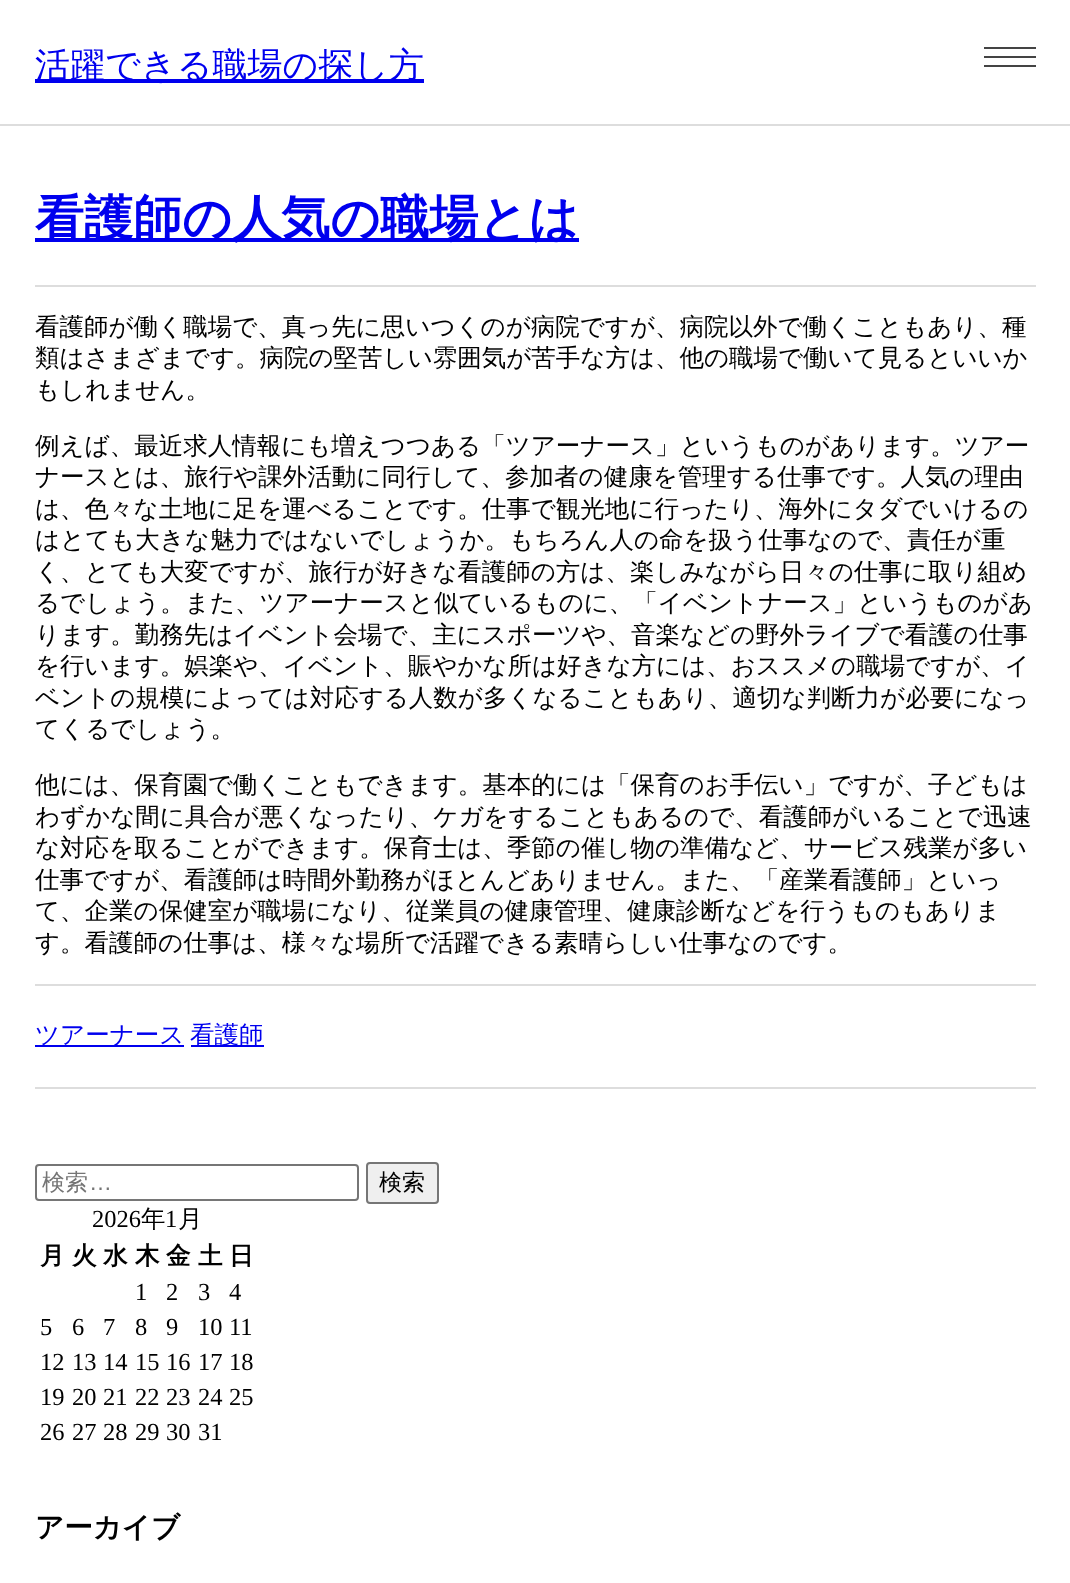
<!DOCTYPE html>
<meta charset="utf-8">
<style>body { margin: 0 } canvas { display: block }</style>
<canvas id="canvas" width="1070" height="1583"></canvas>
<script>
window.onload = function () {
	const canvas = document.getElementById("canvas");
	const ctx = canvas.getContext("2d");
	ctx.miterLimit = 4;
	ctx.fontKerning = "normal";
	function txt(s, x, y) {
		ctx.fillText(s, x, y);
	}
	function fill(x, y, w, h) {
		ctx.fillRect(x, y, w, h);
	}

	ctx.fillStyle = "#FFFFFF";
	fill(0, 0, 1070, 1583);
	ctx.fillStyle = "#DDDDDD";
	fill(0, 124, 1070, 2);
	ctx.fillStyle = "#0000EE";
	fill(35, 79, 389, 4);
	ctx.fillStyle = "#444444";
	fill(984, 56, 52, 2);
	fill(984, 47, 52, 2);
	fill(984, 65, 52, 2);
	ctx.fillStyle = "#DDDDDD";
	fill(35, 1087, 1001, 2);
	fill(35, 285, 1001, 2);
	ctx.fillStyle = "#0000EE";
	fill(35, 238, 544, 4);
	ctx.fillStyle = "#DDDDDD";
	fill(35, 984, 1001, 2);
	ctx.fillStyle = "#0000EE";
	fill(35, 1045, 149, 2);
	fill(191, 1045, 73, 2);
	ctx.beginPath();
	ctx.roundRect(36, 1165, 322, 35, 3);
	ctx.strokeStyle = "#767676";
	ctx.lineWidth = 2;
	ctx.stroke();
	ctx.fillStyle = "#EFEFEF";
	ctx.beginPath();
	ctx.roundRect(367, 1163, 71, 40, 3);
	ctx.fill();
	ctx.stroke();
	ctx.font = "500 35px WenQuanYi Zen Hei";
	ctx.fillStyle = "#0000EE";
	txt("活躍できる職場の探し方", 35, 77);
	ctx.font = "bold 49px WenQuanYi Zen Hei";
	txt("看護師の人気の職場とは", 35, 235);
	ctx.font = "500 24.5px WenQuanYi Zen Hei";
	ctx.fillStyle = "#000000";
	txt("看護師が働く職場で、真っ先に思いつくのが病院ですが、病院以外で働くこともあり、種", 35, 335);
	txt("類はさまざまです。病院の堅苦しい雰囲気が苦手な方は、他の職場で働いて見るといいか", 35, 366);
	txt("もしれません。", 35, 398);
	txt("例えば、最近求人情報にも増えつつある「ツアーナース」というものがあります。ツアー", 35, 454);
	txt("ナースとは、旅行や課外活動に同行して、参加者の健康を管理する仕事です。人気の理由", 35, 485);
	txt("は、色々な土地に足を運べることです。仕事で観光地に行ったり、海外にタダでいけるの", 35, 517);
	txt("はとても大きな魅力ではないでしょうか。もちろん人の命を扱う仕事なので、責任が重", 35, 548);
	txt("く、とても大変ですが、旅行が好きな看護師の方は、楽しみながら日々の仕事に取り組め", 35, 580);
	txt("るでしょう。また、ツアーナースと似ているものに、「イベントナース」というものがあ", 35, 611);
	txt("ります。勤務先はイベント会場で、主にスポーツや、音楽などの野外ライブで看護の仕事", 35, 643);
	txt("を行います。娯楽や、イベント、賑やかな所は好きな方には、おススメの職場ですが、イ", 35, 674);
	txt("ベントの規模によっては対応する人数が多くなることもあり、適切な判断力が必要になっ", 35, 706);
	txt("てくるでしょう。", 35, 737);
	txt("他には、保育園で働くこともできます。基本的には「保育のお手伝い」ですが、子どもは", 35, 793);
	txt("わずかな間に具合が悪くなったり、ケガをすることもあるので、看護師がいることで迅速", 35, 825);
	txt("な対応を取ることができます。保育士は、季節の催し物の準備など、サービス残業が多い", 35, 856);
	txt("仕事ですが、看護師は時間外勤務がほとんどありません。また、「産業看護師」といっ", 35, 888);
	txt("て、企業の保健室が職場になり、従業員の健康管理、健康診断などを行うものもありま", 35, 919);
	txt("す。看護師の仕事は、様々な場所で活躍できる素晴らしい仕事なのです。", 35, 951);
	ctx.fillStyle = "#0000EE";
	txt("ツアーナース", 35, 1043);
	txt("看護師", 190, 1043);
	ctx.font = "500 23px WenQuanYi Zen Hei";
	ctx.fillStyle = "#757575";
	txt("検索", 42, 1190);
	ctx.font = "23px Liberation Sans";
	txt("…", 89, 1190);
	ctx.font = "500 23px WenQuanYi Zen Hei";
	ctx.fillStyle = "#000000";
	txt("検索", 379, 1190);
	ctx.font = "24.5px Liberation Serif";
	txt("2026", 92, 1227);
	ctx.font = "500 24.5px WenQuanYi Zen Hei";
	txt("年", 141, 1227);
	ctx.font = "24.5px Liberation Serif";
	txt("1", 165, 1227);
	ctx.font = "500 24.5px WenQuanYi Zen Hei";
	txt("月", 178, 1227);
	ctx.font = "bold 24.5px WenQuanYi Zen Hei";
	txt("月", 40, 1264);
	txt("火", 72, 1264);
	txt("水", 103, 1264);
	txt("木", 135, 1264);
	txt("金", 166, 1264);
	txt("土", 198, 1264);
	txt("日", 229, 1264);
	ctx.font = "24.5px Liberation Serif";
	txt("1", 135, 1300);
	txt("2", 166, 1300);
	txt("3", 198, 1300);
	txt("4", 229, 1300);
	txt("5", 40, 1335);
	txt("6", 72, 1335);
	txt("7", 103, 1335);
	txt("8", 135, 1335);
	txt("9", 166, 1335);
	txt("10", 198, 1335);
	txt("11", 229, 1335);
	txt("12", 40, 1370);
	txt("13", 72, 1370);
	txt("14", 103, 1370);
	txt("15", 135, 1370);
	txt("16", 166, 1370);
	txt("17", 198, 1370);
	txt("18", 229, 1370);
	txt("19", 40, 1405);
	txt("20", 72, 1405);
	txt("21", 103, 1405);
	txt("22", 135, 1405);
	txt("23", 166, 1405);
	txt("24", 198, 1405);
	txt("25", 229, 1405);
	txt("26", 40, 1440);
	txt("27", 72, 1440);
	txt("28", 103, 1440);
	txt("29", 135, 1440);
	txt("30", 166, 1440);
	txt("31", 198, 1440);
	ctx.font = "bold 28.5px WenQuanYi Zen Hei";
	txt("アーカイブ", 35, 1537);
};
</script>
